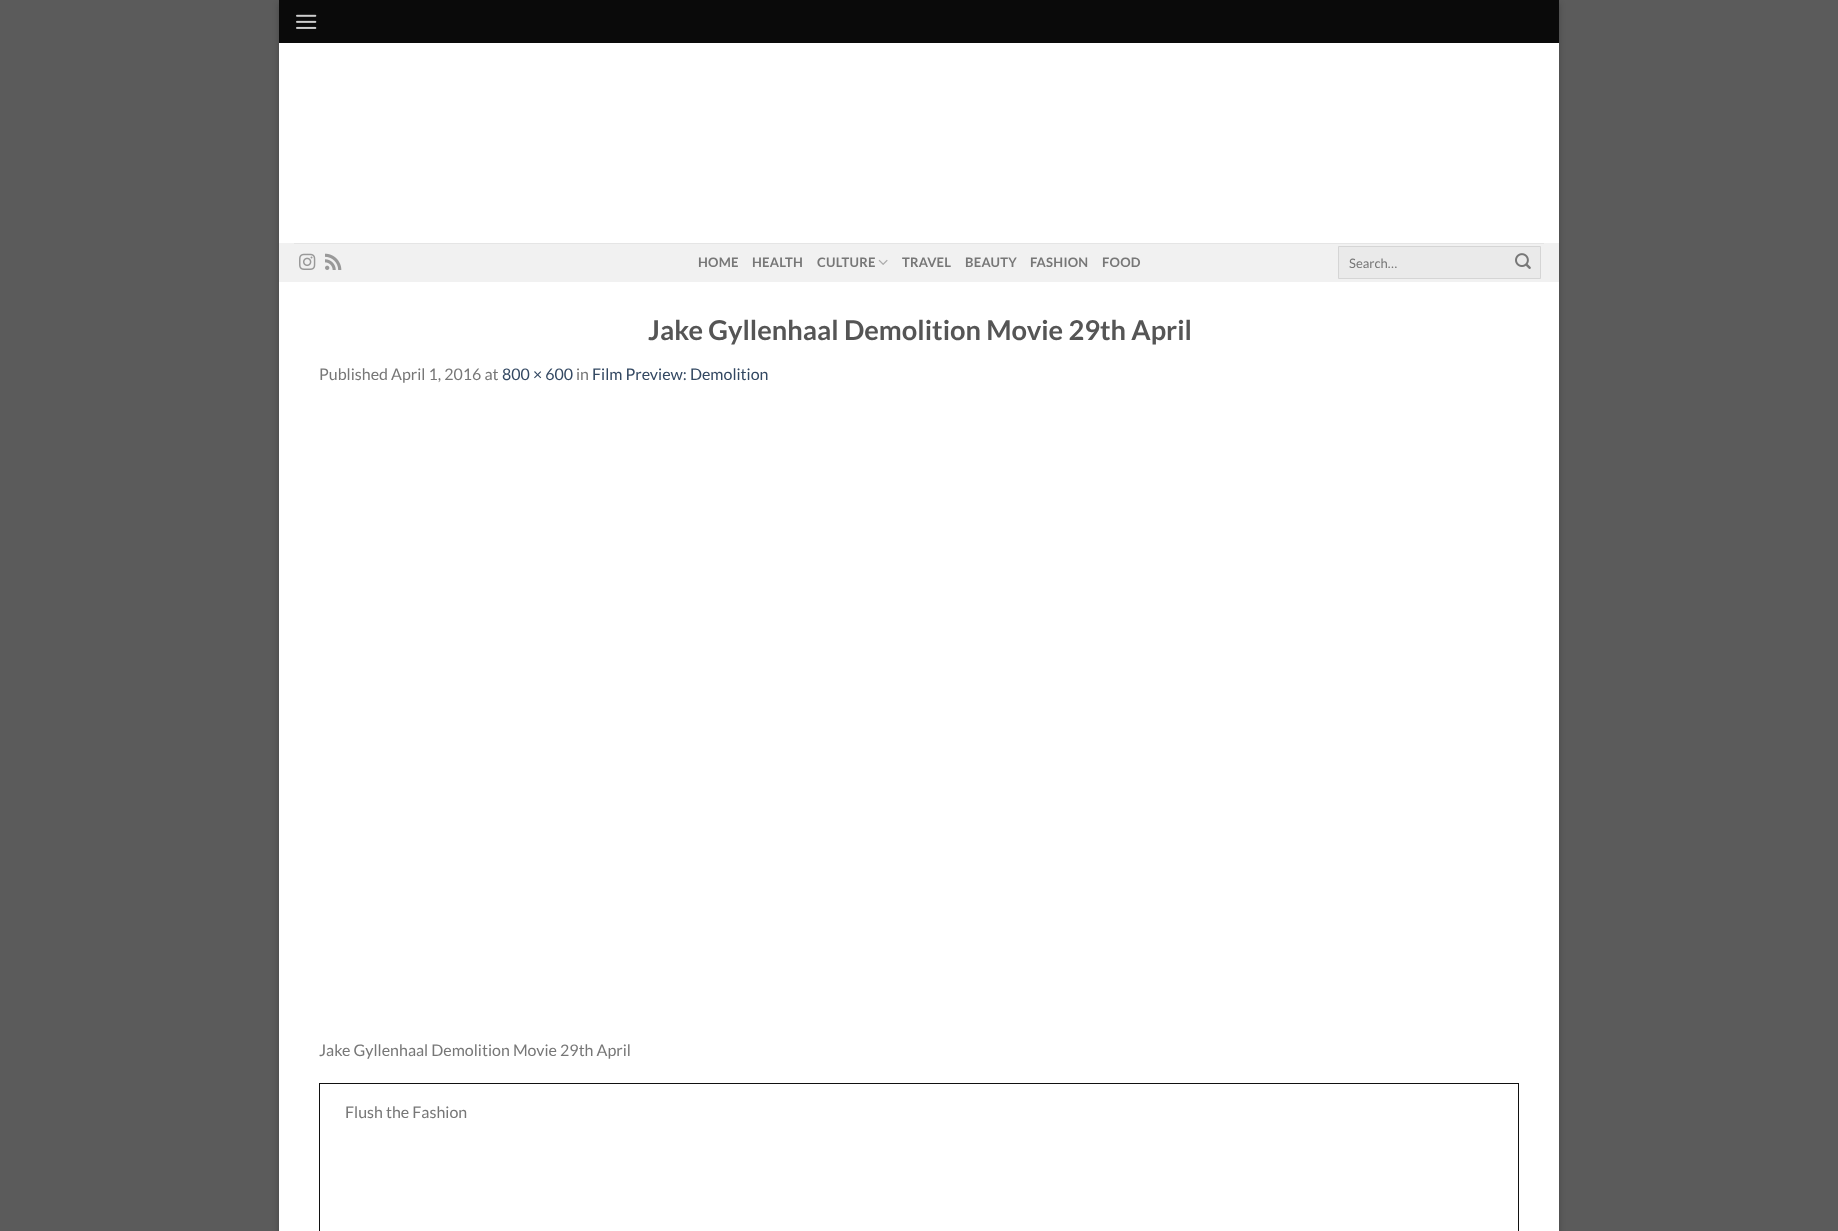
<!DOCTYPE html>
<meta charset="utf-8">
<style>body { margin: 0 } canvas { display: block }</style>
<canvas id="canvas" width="1838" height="1231"></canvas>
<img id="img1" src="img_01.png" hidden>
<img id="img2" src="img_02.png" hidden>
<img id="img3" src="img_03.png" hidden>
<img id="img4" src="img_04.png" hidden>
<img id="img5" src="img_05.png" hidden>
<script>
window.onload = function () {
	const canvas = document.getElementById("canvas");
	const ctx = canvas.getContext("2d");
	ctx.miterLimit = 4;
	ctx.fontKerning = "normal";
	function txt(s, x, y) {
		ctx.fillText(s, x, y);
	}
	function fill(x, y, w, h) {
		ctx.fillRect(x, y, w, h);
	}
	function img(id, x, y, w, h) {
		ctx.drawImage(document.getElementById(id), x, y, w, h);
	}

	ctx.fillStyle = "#5B5B5B";
	fill(0, 0, 1838, 1231);
	ctx.fillStyle = "rgba(0, 0, 0, 0.23)";
	ctx.filter = "blur(3px)";
	ctx.beginPath();
	ctx.rect(279, 3, 1280, 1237);
	ctx.fill();
	ctx.filter = "none";
	ctx.fillStyle = "#FFFFFF";
	fill(279, 43, 1280, 1188);
	ctx.fillStyle = "#0A0A0A";
	fill(279, 0, 1280, 43);
	img("img1", 296, 14, 21, 15);
	ctx.fillStyle = "#F1F1F1";
	fill(279, 243, 1280, 39);
	ctx.fillStyle = "#E5E5E5";
	fill(294, 243, 1250, 1);
	img("img2", 299, 253, 17, 17);
	img("img3", 325, 253, 17, 17);
	img("img4", 878, 259, 10, 6);
	ctx.fillStyle = "#EAEAEA";
	ctx.beginPath();
	ctx.rect(1338.5, 246.5, 202, 32);
	ctx.fill();
	ctx.strokeStyle = "#D5D5D5";
	ctx.stroke();
	img("img5", 1515, 253, 16, 16);
	ctx.strokeStyle = "#111111";
	ctx.strokeRect(319.5, 1083.5, 1199, 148);
	ctx.letterSpacing = "0.25px";
	ctx.font = "bold 13px Lato";
	ctx.fillStyle = "#777777";
	txt("HOME", 698, 267);
	txt("HEALTH", 752, 267);
	txt("CULTURE", 817, 267);
	txt("TRAVEL", 902, 267);
	txt("BEAUTY", 965, 267);
	txt("FASHION", 1030, 267);
	txt("FOOD", 1102, 267);
	ctx.letterSpacing = "0px";
	ctx.font = "13px Lato";
	txt("Search…", 1349, 268);
	ctx.font = "bold 27.25px Lato";
	ctx.fillStyle = "#555555";
	txt("Jake Gyllenhaal Demolition Movie 29th April", 648, 340);
	ctx.font = "16px Lato";
	ctx.fillStyle = "#777777";
	txt("Published April 1, 2016 at", 319, 380);
	ctx.fillStyle = "#334862";
	txt("800 × 600", 502, 380);
	ctx.fillStyle = "#777777";
	txt("in", 576, 380);
	ctx.fillStyle = "#334862";
	txt("Film Preview: Demolition", 592, 380);
	ctx.fillStyle = "#777777";
	txt("Jake Gyllenhaal Demolition Movie 29th April", 319, 1056);
	txt("Flush the Fashion", 345, 1118);
};
</script>
